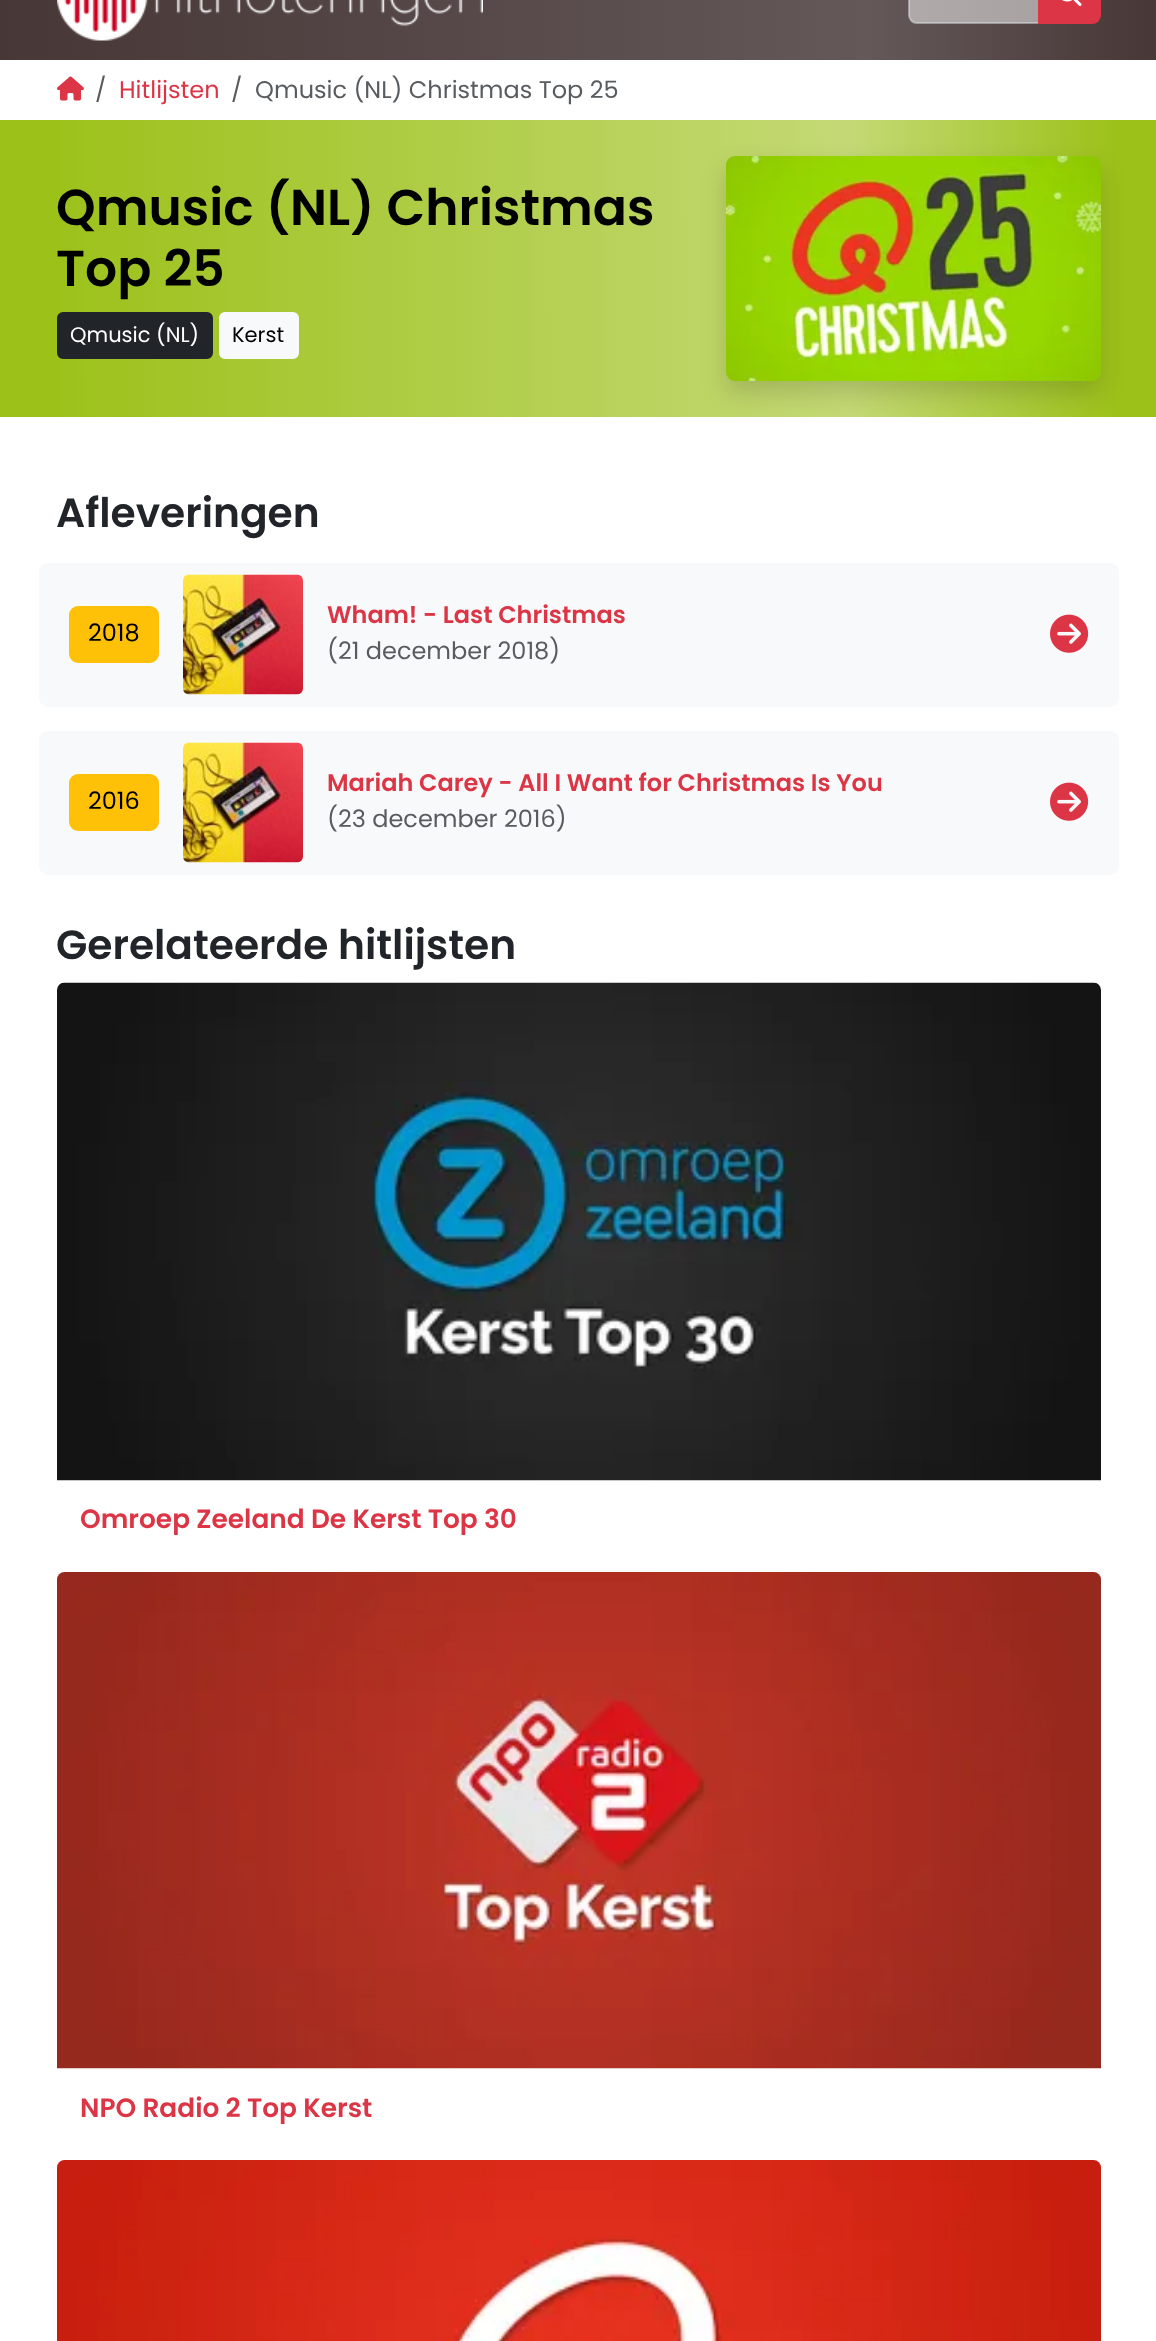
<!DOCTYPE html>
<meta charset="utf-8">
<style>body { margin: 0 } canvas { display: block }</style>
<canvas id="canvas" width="1156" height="2341"></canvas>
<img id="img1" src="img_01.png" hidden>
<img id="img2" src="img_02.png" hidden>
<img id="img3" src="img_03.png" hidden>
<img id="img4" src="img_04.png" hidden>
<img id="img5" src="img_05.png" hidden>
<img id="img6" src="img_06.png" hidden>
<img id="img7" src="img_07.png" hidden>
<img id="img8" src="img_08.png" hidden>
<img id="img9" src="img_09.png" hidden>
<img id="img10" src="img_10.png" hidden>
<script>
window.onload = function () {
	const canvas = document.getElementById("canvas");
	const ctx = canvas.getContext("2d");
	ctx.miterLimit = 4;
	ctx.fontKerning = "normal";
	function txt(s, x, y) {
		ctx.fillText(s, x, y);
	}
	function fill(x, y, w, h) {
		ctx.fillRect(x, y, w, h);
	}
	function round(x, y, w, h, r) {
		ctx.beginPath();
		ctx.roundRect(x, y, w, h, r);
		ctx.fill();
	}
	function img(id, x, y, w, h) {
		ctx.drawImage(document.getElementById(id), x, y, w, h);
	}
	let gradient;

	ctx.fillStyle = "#FFFFFF";
	fill(0, 0, 1156, 2341);
	gradient = ctx.createLinearGradient(0, -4.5, 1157, -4.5);
	gradient.addColorStop(0, "#473737");
	gradient.addColorStop(0.75, "#645858");
	gradient.addColorStop(1, "#473737");
	ctx.fillStyle = gradient;
	fill(0, 0, 1156, 60);
	img("img1", 57, 0, 426, 41);
	ctx.fillStyle = "rgba(255, 255, 255, 0.5)";
	ctx.beginPath();
	ctx.moveTo(917, -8);
	ctx.lineTo(1038, -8);
	ctx.lineTo(1038, 23);
	ctx.lineTo(917, 23);
	ctx.bezierCurveTo(912.5, 23, 909, 19.5, 909, 15);
	ctx.lineTo(909, 0);
	ctx.bezierCurveTo(909, -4.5, 912.5, -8, 917, -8);
	ctx.closePath();
	ctx.fill();
	ctx.beginPath();
	ctx.moveTo(917, -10);
	ctx.lineTo(1039, -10);
	ctx.lineTo(1039, 23);
	ctx.lineTo(917, 23);
	ctx.bezierCurveTo(912.5, 23, 909, 19.5, 909, 15);
	ctx.lineTo(909, -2);
	ctx.bezierCurveTo(909, -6.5, 912.5, -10, 917, -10);
	ctx.closePath();
	ctx.strokeStyle = "rgba(222, 226, 230, 0.5)";
	ctx.lineWidth = 2;
	ctx.stroke();
	ctx.fillStyle = "#DC3545";
	ctx.beginPath();
	ctx.moveTo(1039, -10);
	ctx.lineTo(1092, -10);
	ctx.bezierCurveTo(1096.5, -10, 1100, -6.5, 1100, -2);
	ctx.lineTo(1100, 15);
	ctx.bezierCurveTo(1100, 19.5, 1096.5, 23, 1092, 23);
	ctx.lineTo(1039, 23);
	ctx.closePath();
	ctx.fill();
	ctx.strokeStyle = "#DC3545";
	ctx.stroke();
	img("img2", 1062, 0, 20, 6);
	img("img3", 57, 76, 27, 25);
	ctx.fillStyle = "#9CC119";
	fill(0, 120, 1156, 297);
	gradient = ctx.createLinearGradient(39, 269, 1119, 268);
	gradient.addColorStop(0, "#9CC119");
	gradient.addColorStop(0.75, "#C4D975");
	gradient.addColorStop(1, "#9CC119");
	ctx.fillStyle = gradient;
	fill(61, 120, 1051, 297);
	ctx.fillStyle = "#212529";
	ctx.beginPath();
	ctx.roundRect(58, 313, 154, 45, 5);
	ctx.fill();
	ctx.strokeStyle = "#212529";
	ctx.stroke();
	ctx.fillStyle = "#F8F9FA";
	ctx.beginPath();
	ctx.roundRect(220, 313, 78, 45, 5);
	ctx.fill();
	ctx.strokeStyle = "#F8F9FA";
	ctx.stroke();
	ctx.fillStyle = "rgba(0, 0, 0, 0.15)";
	ctx.filter = "blur(12px)";
	ctx.beginPath();
	ctx.roundRect(726, 168, 375, 225, 9);
	ctx.fill();
	ctx.filter = "none";
	img("img4", 726, 156, 375, 225);
	ctx.fillStyle = "#F8F9FA";
	round(39, 563, 1080, 144, 9);
	ctx.fillStyle = "#FFC107";
	ctx.beginPath();
	ctx.roundRect(70, 607, 88, 55, 8);
	ctx.fill();
	ctx.strokeStyle = "#FFC107";
	ctx.stroke();
	img("img5", 183, 574, 120, 121);
	img("img6", 1050, 614, 39, 39);
	ctx.fillStyle = "#F8F9FA";
	round(39, 731, 1080, 144, 9);
	ctx.fillStyle = "#FFC107";
	ctx.beginPath();
	ctx.roundRect(70, 775, 88, 55, 8);
	ctx.fill();
	ctx.stroke();
	img("img7", 183, 742, 120, 121);
	img("img6", 1050, 782, 39, 39);
	img("img8", 57, 982, 1044, 499);
	img("img9", 57, 1572, 1044, 497);
	img("img10", 57, 2160, 1044, 181);
	ctx.font = "24px Poppins";
	ctx.fillStyle = "#595C5F";
	txt("/", 95, 98);
	ctx.fillStyle = "#DC3545";
	txt("Hitlijsten", 119, 98);
	ctx.fillStyle = "#595C5F";
	txt("/", 231, 98);
	txt("Qmusic (NL) Christmas Top 25", 255, 98);
	ctx.font = "600 50.4px Poppins";
	ctx.fillStyle = "#000000";
	txt("Qmusic (NL) Christmas", 56, 225);
	txt("Top 25", 56, 286);
	ctx.font = "21px Poppins";
	ctx.fillStyle = "#FFFFFF";
	txt("Qmusic (NL)", 70, 342);
	ctx.fillStyle = "#000000";
	txt("Kerst", 232, 342);
	ctx.font = "600 40.75px Poppins";
	ctx.fillStyle = "#212529";
	txt("Afleveringen", 56, 527);
	ctx.font = "24px Poppins";
	ctx.fillStyle = "#000000";
	txt("2018", 88, 641);
	ctx.font = "600 24px Poppins";
	ctx.fillStyle = "#DC3545";
	txt("Wham! - Last Christmas", 327, 623);
	ctx.font = "24px Poppins";
	ctx.fillStyle = "#595C5F";
	txt("(21 december 2018)", 327, 659);
	ctx.fillStyle = "#000000";
	txt("2016", 88, 809);
	ctx.font = "600 24px Poppins";
	ctx.fillStyle = "#DC3545";
	txt("Mariah Carey - All I Want for Christmas Is You", 327, 791);
	ctx.font = "24px Poppins";
	ctx.fillStyle = "#595C5F";
	txt("(23 december 2016)", 327, 827);
	ctx.font = "600 40.75px Poppins";
	ctx.fillStyle = "#212529";
	txt("Gerelateerde hitlijsten", 56, 959);
	ctx.font = "600 26.4px Poppins";
	ctx.fillStyle = "#DC3545";
	txt("Omroep Zeeland De Kerst Top 30", 80, 1528);
	txt("NPO Radio 2 Top Kerst", 80, 2117);
};
</script>
